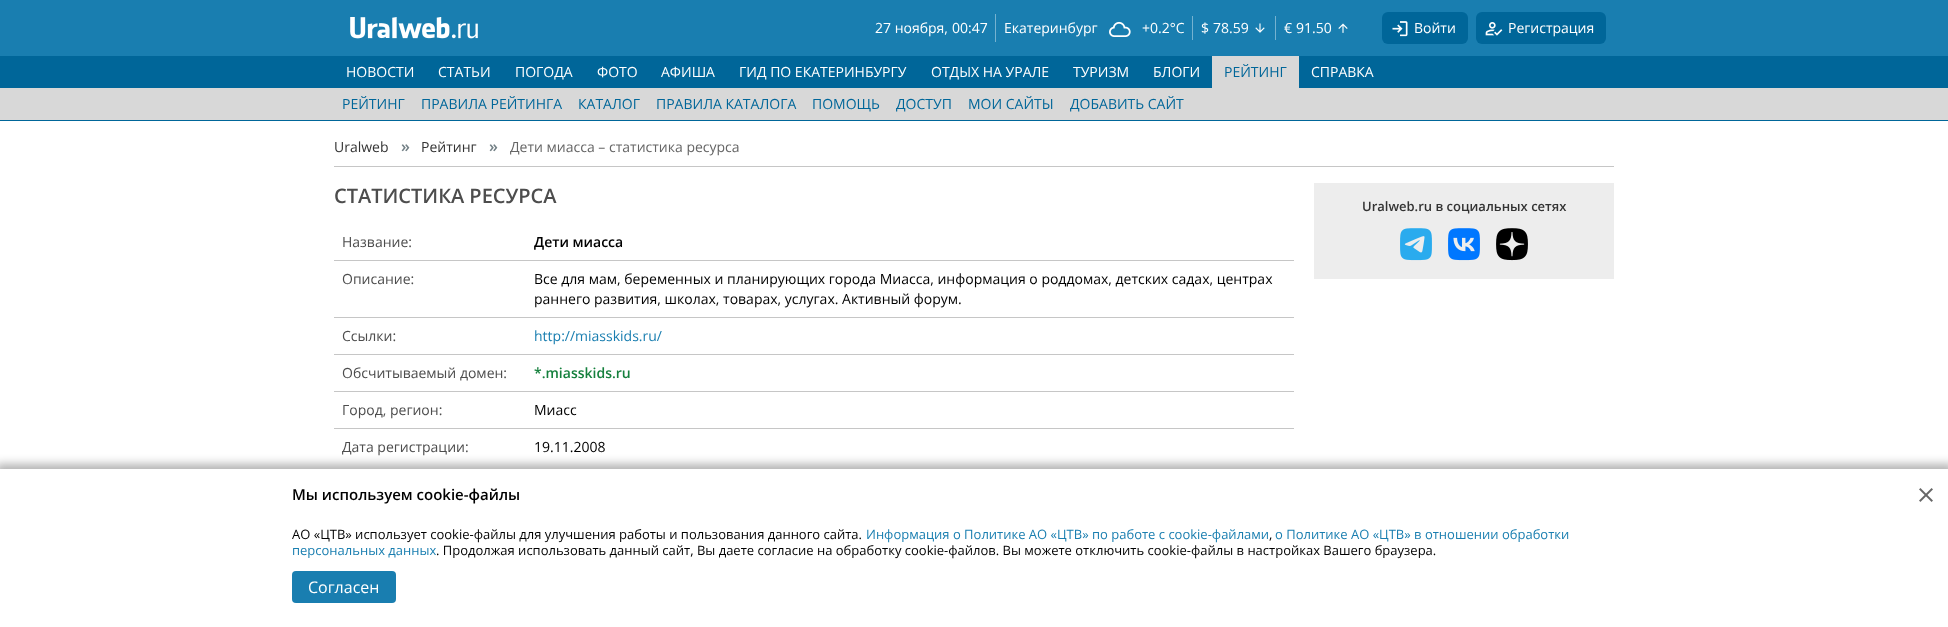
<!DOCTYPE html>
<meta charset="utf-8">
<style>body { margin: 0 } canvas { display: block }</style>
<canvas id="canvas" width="1948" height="627"></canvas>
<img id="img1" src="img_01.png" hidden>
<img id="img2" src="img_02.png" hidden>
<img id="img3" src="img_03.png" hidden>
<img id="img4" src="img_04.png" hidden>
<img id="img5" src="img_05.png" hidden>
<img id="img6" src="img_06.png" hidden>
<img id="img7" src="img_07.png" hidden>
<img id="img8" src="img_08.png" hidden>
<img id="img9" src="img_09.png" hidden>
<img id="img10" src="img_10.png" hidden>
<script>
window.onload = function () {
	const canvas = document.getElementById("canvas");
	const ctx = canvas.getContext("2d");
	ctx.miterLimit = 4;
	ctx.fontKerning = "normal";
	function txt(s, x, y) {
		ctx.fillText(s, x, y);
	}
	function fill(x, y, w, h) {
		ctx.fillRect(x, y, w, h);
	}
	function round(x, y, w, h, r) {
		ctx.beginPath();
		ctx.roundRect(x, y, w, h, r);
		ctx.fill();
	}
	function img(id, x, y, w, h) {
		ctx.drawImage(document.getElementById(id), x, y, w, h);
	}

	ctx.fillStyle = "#FFFFFF";
	fill(0, 0, 1948, 627);
	ctx.fillStyle = "#197EB0";
	fill(0, 0, 1948, 56);
	img("img1", 350, 17, 128, 22);
	ctx.fillStyle = "#75B2D0";
	fill(995, 14, 1, 28);
	img("img2", 1109, 21, 22, 16);
	fill(1192, 16, 1, 24);
	img("img3", 1255, 23, 10, 10);
	fill(1275, 16, 1, 24);
	img("img4", 1338, 23, 10, 10);
	ctx.fillStyle = "#006699";
	round(1382, 12, 86, 32, 6);
	img("img5", 1392, 21, 16, 16);
	round(1476, 12, 130, 32, 6);
	img("img6", 1485, 22, 18, 14);
	fill(0, 56, 1948, 32);
	ctx.fillStyle = "#D8D8D8";
	fill(1212, 56, 87, 32);
	fill(0, 88, 1948, 32);
	ctx.fillStyle = "#006699";
	fill(0, 120, 1948, 1);
	ctx.fillStyle = "#C6C6C6";
	fill(334, 166, 1280, 1);
	fill(334, 260, 960, 1);
	fill(334, 317, 960, 1);
	fill(334, 354, 960, 1);
	fill(334, 391, 960, 1);
	fill(334, 428, 960, 1);
	ctx.fillStyle = "#EDEDED";
	fill(1314, 183, 300, 96);
	img("img7", 1400, 228, 32, 33);
	img("img8", 1448, 228, 32, 33);
	img("img9", 1496, 228, 32, 33);
	ctx.fillStyle = "rgba(0, 0, 0, 0.3)";
	ctx.filter = "blur(5px)";
	ctx.beginPath();
	ctx.rect(-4, 464, 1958, 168);
	ctx.fill();
	ctx.filter = "none";
	ctx.fillStyle = "#FFFFFF";
	fill(0, 469, 1948, 158);
	ctx.fillStyle = "#197EB0";
	round(292, 571, 104, 32, 4);
	img("img10", 1919, 488, 14, 14);
	ctx.font = "14px Open Sans";
	ctx.fillStyle = "#FFFFFF";
	txt("27 ноября,", 875, 33);
	txt("00:47", 952, 33);
	txt("Екатеринбург", 1004, 33);
	txt("+0.2°C", 1142, 33);
	txt("$", 1201, 33);
	txt("78.59", 1213, 33);
	txt("€", 1284, 33);
	txt("91.50", 1296, 33);
	txt("Войти", 1414, 33);
	txt("Регистрация", 1508, 33);
	ctx.fillStyle = "#006699";
	txt("РЕЙТИНГ", 1224, 77);
	txt("РЕЙТИНГ", 342, 109);
	txt("ПРАВИЛА РЕЙТИНГА", 421, 109);
	txt("КАТАЛОГ", 578, 109);
	txt("ПРАВИЛА КАТАЛОГА", 656, 109);
	txt("ПОМОЩЬ", 812, 109);
	txt("ДОСТУП", 896, 109);
	txt("МОИ САЙТЫ", 968, 109);
	txt("ДОБАВИТЬ САЙТ", 1070, 109);
	ctx.fillStyle = "#FFFFFF";
	txt("НОВОСТИ", 346, 77);
	txt("СТАТЬИ", 438, 77);
	txt("ПОГОДА", 515, 77);
	txt("ФОТО", 597, 77);
	txt("АФИША", 661, 77);
	txt("ГИД ПО ЕКАТЕРИНБУРГУ", 739, 77);
	txt("ОТДЫХ НА УРАЛЕ", 931, 77);
	txt("ТУРИЗМ", 1073, 77);
	txt("БЛОГИ", 1153, 77);
	txt("СПРАВКА", 1311, 77);
	ctx.fillStyle = "#333333";
	txt("Uralweb", 334, 152);
	ctx.font = "600 16px Open Sans";
	ctx.fillStyle = "#738086";
	txt("»", 401, 152);
	ctx.font = "14px Open Sans";
	ctx.fillStyle = "#333333";
	txt("Рейтинг", 421, 152);
	ctx.font = "600 16px Open Sans";
	ctx.fillStyle = "#738086";
	txt("»", 489, 152);
	ctx.font = "14px Open Sans";
	ctx.fillStyle = "#666666";
	txt("Дети миасса – статистика ресурса", 510, 152);
	ctx.font = "600 20px Open Sans";
	ctx.fillStyle = "#4D4D4D";
	txt("CТАТИСТИКА РЕСУРСА", 334, 203);
	ctx.font = "14px Open Sans";
	txt("Название:", 342, 247);
	ctx.font = "600 14px Open Sans";
	ctx.fillStyle = "#000000";
	txt("Дети миасса", 534, 247);
	ctx.font = "14px Open Sans";
	ctx.fillStyle = "#4D4D4D";
	txt("Описание:", 342, 284);
	ctx.fillStyle = "#000000";
	txt("Все для мам, беременных и планирующих города Миасса, информация о роддомах, детских садах, центрах", 534, 284);
	txt("раннего развития, школах, товарах, услугах. Активный форум.", 534, 304);
	ctx.fillStyle = "#4D4D4D";
	txt("Ссылки:", 342, 341);
	ctx.fillStyle = "#197EB0";
	txt("http://miasskids.ru/", 534, 341);
	ctx.fillStyle = "#4D4D4D";
	txt("Обсчитываемый домен:", 342, 378);
	ctx.font = "600 14px Open Sans";
	ctx.fillStyle = "#15803D";
	txt("*.miasskids.ru", 534, 378);
	ctx.font = "14px Open Sans";
	ctx.fillStyle = "#4D4D4D";
	txt("Город, регион:", 342, 415);
	ctx.fillStyle = "#000000";
	txt("Миасс", 534, 415);
	ctx.fillStyle = "#4D4D4D";
	txt("Дата регистрации:", 342, 452);
	ctx.fillStyle = "#000000";
	txt("19.11.2008", 534, 452);
	ctx.font = "600 13px Open Sans";
	ctx.fillStyle = "#333333";
	txt("Uralweb.ru в социальных сетях", 1362, 211);
	ctx.font = "600 15px Open Sans";
	ctx.fillStyle = "#000000";
	txt("Мы используем cookie-файлы", 292, 500);
	ctx.font = "13px Open Sans";
	txt("АО «ЦТВ» использует cookie-файлы для улучшения работы и пользования данного сайта.", 292, 539);
	ctx.fillStyle = "#197EB0";
	txt("Информация о Политике АО «ЦТВ» по работе с cookie-файлами", 866, 539);
	ctx.fillStyle = "#000000";
	txt(",", 1269, 539);
	ctx.fillStyle = "#197EB0";
	txt("о Политике АО «ЦТВ» в отношении обработки", 1275, 539);
	txt("персональных данных", 292, 555);
	ctx.fillStyle = "#000000";
	txt(". Продолжая использовать данный сайт, Вы даете согласие на обработку cookie-файлов. Вы можете отключить cookie-файлы в настройках Вашего браузера.", 436, 555);
	ctx.font = "16px Open Sans";
	ctx.fillStyle = "#FFFFFF";
	txt("Согласен", 308, 593);
};
</script>
